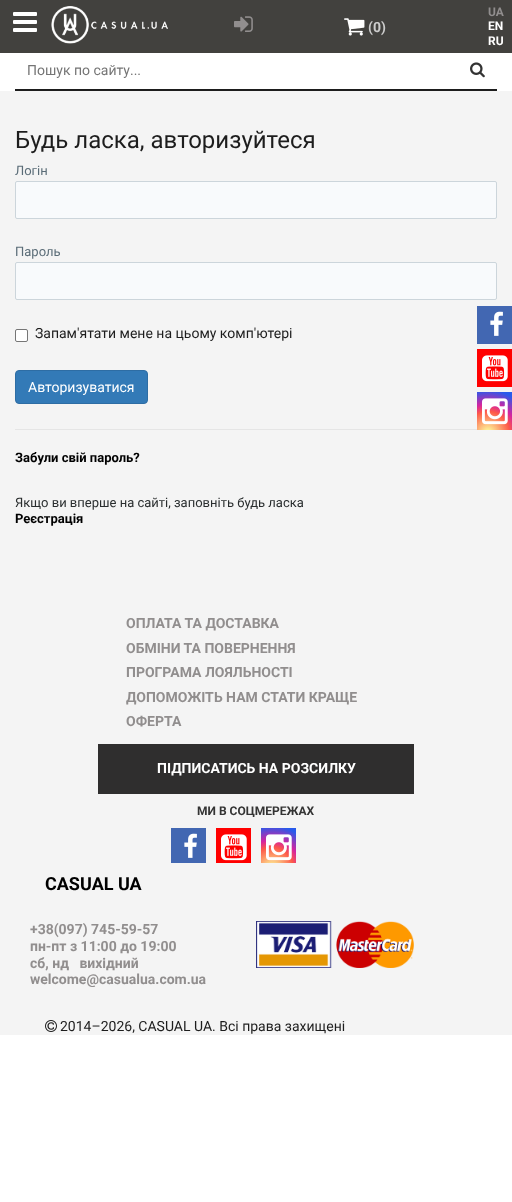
<!DOCTYPE html>
<meta charset="utf-8">
<style>body { margin: 0 } canvas { display: block }</style>
<canvas id="canvas" width="512" height="1202"></canvas>
<img id="img1" src="img_01.png" hidden>
<img id="img2" src="img_02.png" hidden>
<img id="img3" src="img_03.png" hidden>
<img id="img4" src="img_04.png" hidden>
<img id="img5" src="img_05.png" hidden>
<img id="img6" src="img_06.png" hidden>
<img id="img7" src="img_07.png" hidden>
<img id="img8" src="img_08.png" hidden>
<img id="img9" src="img_09.png" hidden>
<img id="img10" src="img_10.png" hidden>
<img id="img11" src="img_11.png" hidden>
<script>
window.onload = function () {
	const canvas = document.getElementById("canvas");
	const ctx = canvas.getContext("2d");
	ctx.miterLimit = 4;
	ctx.fontKerning = "normal";
	function txt(s, x, y) {
		ctx.fillText(s, x, y);
	}
	function fill(x, y, w, h) {
		ctx.fillRect(x, y, w, h);
	}
	function img(id, x, y, w, h) {
		ctx.drawImage(document.getElementById(id), x, y, w, h);
	}
	let gradient;

	ctx.fillStyle = "#FFFFFF";
	fill(0, 0, 512, 1202);
	ctx.fillStyle = "#42413E";
	fill(0, 0, 512, 53);
	img("img1", 13, 12, 24, 20);
	img("img2", 51, 6, 117, 38);
	img("img3", 234, 16, 19, 16);
	img("img4", 344, 18, 21, 18);
	ctx.fillStyle = "#1D1D1D";
	fill(15, 89, 482, 2);
	img("img5", 470, 62, 15, 16);
	ctx.fillStyle = "#F4F4F4";
	fill(0, 91, 512, 944);
	ctx.fillStyle = "#F8FAFC";
	ctx.beginPath();
	ctx.roundRect(15.5, 181.5, 481, 37, 1.5);
	ctx.fill();
	ctx.strokeStyle = "#CCD5DB";
	ctx.stroke();
	ctx.beginPath();
	ctx.roundRect(15.5, 262.5, 481, 37, 1.5);
	ctx.fill();
	ctx.stroke();
	ctx.fillStyle = "#FFFFFF";
	ctx.beginPath();
	ctx.roundRect(15.5, 329.5, 12, 12, 1.5);
	ctx.fill();
	ctx.strokeStyle = "#767676";
	ctx.stroke();
	ctx.fillStyle = "#337AB7";
	ctx.beginPath();
	ctx.roundRect(15.5, 370.5, 132, 33, 3.5);
	ctx.fill();
	ctx.strokeStyle = "#2E6DA4";
	ctx.stroke();
	ctx.fillStyle = "#E5E5E5";
	fill(15, 429, 462, 1);
	ctx.fillStyle = "#4267B2";
	fill(477, 306, 35, 38);
	img("img6", 490, 311, 13, 25);
	ctx.fillStyle = "#FF0000";
	fill(477, 349, 35, 38);
	img("img7", 482, 355, 26, 27);
	gradient = ctx.createRadialGradient(488, 433, 0, 488, 433, 48);
	gradient.addColorStop(0, "#FDF497");
	gradient.addColorStop(0.05, "#FDF497");
	gradient.addColorStop(0.45, "#FD5949");
	gradient.addColorStop(0.6, "#D6249F");
	gradient.addColorStop(0.9, "#285AEB");
	ctx.fillStyle = gradient;
	fill(477, 392, 35, 38);
	img("img8", 482, 398, 26, 27);
	ctx.fillStyle = "#2F2E2E";
	fill(98, 744, 316, 50);
	ctx.fillStyle = "#4267B2";
	fill(171, 828, 35, 35);
	img("img6", 184, 833, 13, 25);
	ctx.fillStyle = "#FF0000";
	fill(216, 828, 35, 35);
	img("img7", 221, 834, 26, 27);
	gradient = ctx.createRadialGradient(272, 869, 0, 272, 869, 48);
	gradient.addColorStop(0, "#FDF497");
	gradient.addColorStop(0.05, "#FDF497");
	gradient.addColorStop(0.45, "#FD5949");
	gradient.addColorStop(0.6, "#D6249F");
	gradient.addColorStop(0.9, "#285AEB");
	ctx.fillStyle = gradient;
	fill(261, 828, 35, 35);
	img("img9", 266, 834, 26, 27);
	img("img10", 256, 921, 158, 47);
	img("img11", 45, 1020, 12, 12);
	ctx.font = "bold 14px Roboto";
	ctx.fillStyle = "#CCCCCC";
	txt("(0)", 368, 32);
	ctx.font = "bold 12px Roboto";
	ctx.fillStyle = "#918E8E";
	txt("UA", 488, 16);
	ctx.fillStyle = "#FFFFFF";
	txt("EN", 488, 30);
	txt("RU", 488, 45);
	ctx.font = "14px Roboto";
	ctx.fillStyle = "#757575";
	txt("Пошук по сайту...", 27, 75);
	ctx.font = "24px Roboto";
	ctx.fillStyle = "#1D1D1D";
	txt("Будь ласка, авторизуйтеся", 15, 148);
	ctx.font = "13px Roboto";
	ctx.fillStyle = "#5A6C77";
	txt("Логін", 15, 175);
	txt("Пароль", 15, 256);
	ctx.font = "14px Roboto";
	ctx.fillStyle = "#1D1D1D";
	txt("Запам'ятати мене на цьому комп'ютері", 35, 338);
	ctx.fillStyle = "#FFFFFF";
	txt("Авторизуватися", 28, 392);
	ctx.font = "bold 13px Roboto";
	ctx.fillStyle = "#000000";
	txt("Забули свій пароль?", 15, 462);
	ctx.font = "13px Roboto";
	ctx.fillStyle = "#292D2E";
	txt("Якщо ви вперше на сайті, заповніть будь ласка", 15, 507);
	ctx.font = "bold 13px Roboto";
	ctx.fillStyle = "#000000";
	txt("Реєстрація", 15, 523);
	ctx.font = "bold 14px Roboto";
	ctx.fillStyle = "#918E8E";
	txt("ОПЛАТА ТА ДОСТАВКА", 126, 628);
	txt("ОБМІНИ ТА ПОВЕРНЕННЯ", 126, 653);
	txt("ПРОГРАМА ЛОЯЛЬНОСТІ", 126, 677);
	txt("ДОПОМОЖІТЬ НАМ СТАТИ КРАЩЕ", 126, 702);
	txt("ОФЕРТА", 126, 726);
	ctx.fillStyle = "#FFFFFF";
	txt("ПІДПИСАТИСЬ НА РОЗСИЛКУ", 157, 773);
	ctx.font = "bold 12px Roboto";
	ctx.fillStyle = "#343434";
	txt("МИ В СОЦМЕРЕЖАХ", 197, 815);
	ctx.font = "bold 18px Roboto";
	ctx.fillStyle = "#000000";
	txt("CASUAL UA", 45, 890);
	ctx.font = "bold 14px Roboto";
	ctx.fillStyle = "#918E8E";
	txt("+38(097) 745-59-57", 30, 934);
	txt("пн-пт з 11:00 до 19:00", 30, 951);
	txt("сб, нд   вихідний", 30, 968);
	txt("welcome@casualua.com.ua", 30, 984);
	ctx.font = "14px Roboto";
	ctx.fillStyle = "#1D1D1D";
	txt("2014–2026, CASUAL UA. Всі права захищені", 60, 1031);
};
</script>
